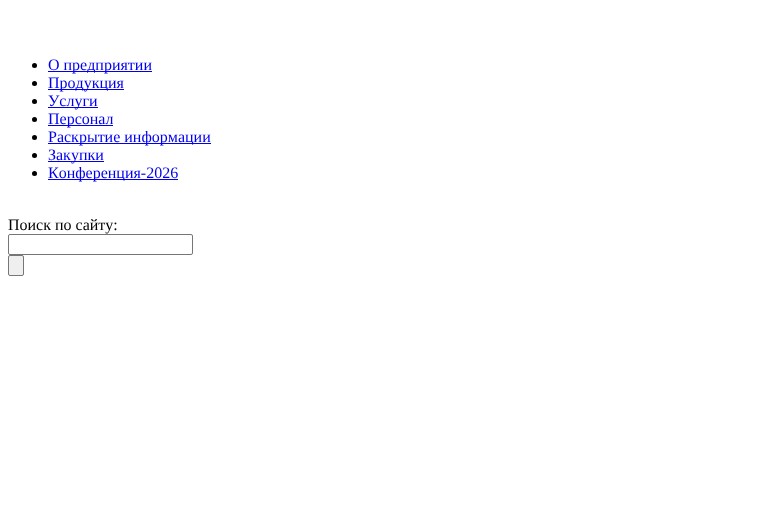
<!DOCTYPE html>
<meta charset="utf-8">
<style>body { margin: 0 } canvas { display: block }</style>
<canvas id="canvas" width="758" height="526"></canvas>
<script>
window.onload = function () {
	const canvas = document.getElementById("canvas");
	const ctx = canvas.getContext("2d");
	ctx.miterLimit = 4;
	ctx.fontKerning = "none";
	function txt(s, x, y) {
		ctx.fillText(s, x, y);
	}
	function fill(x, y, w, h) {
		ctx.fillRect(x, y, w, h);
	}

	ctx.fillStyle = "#FFFFFF";
	fill(0, 0, 758, 526);
	ctx.fillStyle = "#000000";
	ctx.beginPath();
	ctx.arc(34.5, 65.5, 2.5, 0, Math.PI * 2);
	ctx.fill();
	ctx.fillStyle = "#0000EE";
	fill(48, 71, 104, 1);
	ctx.fillStyle = "#000000";
	ctx.beginPath();
	ctx.arc(34.5, 83.5, 2.5, 0, Math.PI * 2);
	ctx.fill();
	ctx.fillStyle = "#0000EE";
	fill(48, 89, 76, 1);
	ctx.fillStyle = "#000000";
	ctx.beginPath();
	ctx.arc(34.5, 101.5, 2.5, 0, Math.PI * 2);
	ctx.fill();
	ctx.fillStyle = "#0000EE";
	fill(48, 107, 50, 1);
	ctx.fillStyle = "#000000";
	ctx.beginPath();
	ctx.arc(34.5, 119.5, 2.5, 0, Math.PI * 2);
	ctx.fill();
	ctx.fillStyle = "#0000EE";
	fill(48, 125, 65, 1);
	ctx.fillStyle = "#000000";
	ctx.beginPath();
	ctx.arc(34.5, 137.5, 2.5, 0, Math.PI * 2);
	ctx.fill();
	ctx.fillStyle = "#0000EE";
	fill(48, 143, 163, 1);
	ctx.fillStyle = "#000000";
	ctx.beginPath();
	ctx.arc(34.5, 155.5, 2.5, 0, Math.PI * 2);
	ctx.fill();
	ctx.fillStyle = "#0000EE";
	fill(48, 161, 56, 1);
	ctx.fillStyle = "#000000";
	ctx.beginPath();
	ctx.arc(34.5, 173.5, 2.5, 0, Math.PI * 2);
	ctx.fill();
	ctx.fillStyle = "#0000EE";
	fill(48, 179, 130, 1);
	ctx.beginPath();
	ctx.roundRect(8.5, 234.5, 184, 20, 1.5);
	ctx.strokeStyle = "#767676";
	ctx.stroke();
	ctx.fillStyle = "#EFEFEF";
	ctx.beginPath();
	ctx.roundRect(8.5, 255.5, 15, 20, 1.5);
	ctx.fill();
	ctx.stroke();
	ctx.font = "16px Liberation Serif";
	ctx.fillStyle = "#0000EE";
	txt("О предприятии", 48, 70);
	txt("Продукция", 48, 88);
	txt("Услуги", 48, 106);
	txt("Персонал", 48, 124);
	txt("Раскрытие информации", 48, 142);
	txt("Закупки", 48, 160);
	txt("Конференция-2026", 48, 178);
	ctx.fillStyle = "#000000";
	txt("Поиск по сайту:", 8, 230);
};
</script>
